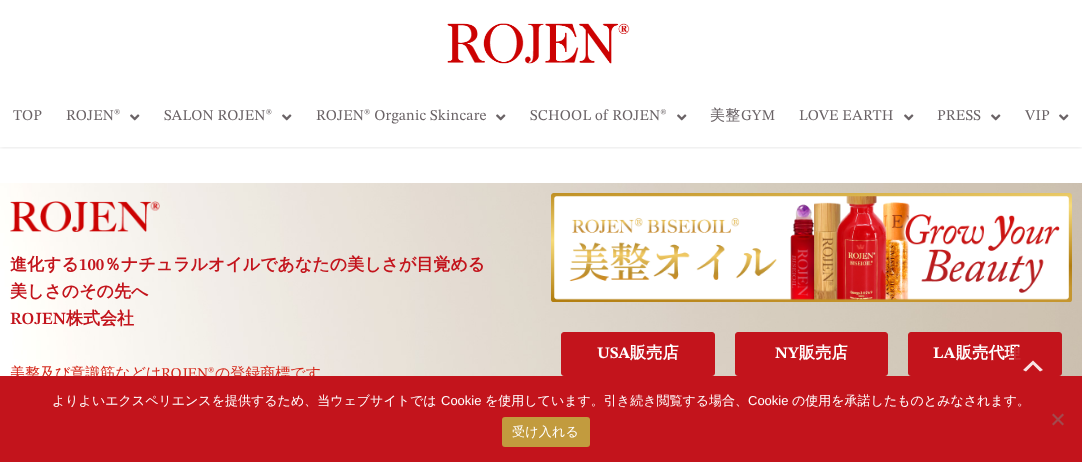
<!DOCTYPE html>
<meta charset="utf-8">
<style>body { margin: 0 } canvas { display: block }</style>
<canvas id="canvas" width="1082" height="462"></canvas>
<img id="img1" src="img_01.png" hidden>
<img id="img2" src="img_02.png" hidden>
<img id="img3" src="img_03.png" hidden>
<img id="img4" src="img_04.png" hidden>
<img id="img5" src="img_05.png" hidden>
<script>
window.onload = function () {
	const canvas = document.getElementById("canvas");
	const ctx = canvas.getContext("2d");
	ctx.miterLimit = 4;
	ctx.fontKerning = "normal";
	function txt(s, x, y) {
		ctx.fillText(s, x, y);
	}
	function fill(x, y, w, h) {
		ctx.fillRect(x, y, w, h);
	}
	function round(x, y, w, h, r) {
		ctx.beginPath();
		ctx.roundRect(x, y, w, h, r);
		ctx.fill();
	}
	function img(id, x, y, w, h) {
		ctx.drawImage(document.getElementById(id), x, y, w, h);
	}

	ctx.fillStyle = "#FFFFFF";
	fill(0, 0, 1082, 462);
	ctx.save();
	ctx.beginPath();
	ctx.rect(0, 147, 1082, 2);
	ctx.clip();
	ctx.fillStyle = "rgba(0, 0, 0, 0.13)";
	ctx.filter = "blur(2px)";
	ctx.beginPath();
	ctx.rect(0, 0, 1082, 147);
	ctx.fill();
	ctx.filter = "none";
	ctx.restore();
	img("img1", 447, 23, 183, 41);
	img("img2", 130, 114, 10, 7);
	img("img2", 282, 114, 10, 7);
	img("img2", 496, 114, 10, 7);
	img("img2", 677, 114, 10, 7);
	img("img2", 904, 114, 10, 7);
	img("img2", 991, 114, 10, 7);
	img("img2", 1059, 114, 10, 7);
	img("img3", 0, 183, 1082, 193);
	img("img4", 10, 201, 150, 31);
	img("img5", 551, 193, 521, 109);
	ctx.fillStyle = "#C3141C";
	ctx.beginPath();
	ctx.roundRect(561.5, 332.5, 153, 43, 2.5);
	ctx.fill();
	ctx.strokeStyle = "#C3141C";
	ctx.stroke();
	ctx.beginPath();
	ctx.roundRect(735.5, 332.5, 152, 43, 2.5);
	ctx.fill();
	ctx.stroke();
	ctx.beginPath();
	ctx.roundRect(908.5, 332.5, 153, 43, 2.5);
	ctx.fill();
	ctx.stroke();
	ctx.letterSpacing = "0.2px";
	ctx.font = "15px STIX Two Text";
	ctx.fillStyle = "#6A6366";
	txt("TOP", 13, 120);
	txt("ROJEN®", 66, 120);
	txt("SALON ROJEN®", 164, 120);
	txt("ROJEN® Organic Skincare", 316, 120);
	txt("SCHOOL of ROJEN®", 530, 120);
	ctx.font = "500 15px WenQuanYi Zen Hei";
	txt("美整", 710, 120);
	ctx.font = "15px STIX Two Text";
	txt("GYM", 741, 120);
	txt("LOVE EARTH", 799, 120);
	txt("PRESS", 937, 120);
	txt("VIP", 1025, 120);
	ctx.letterSpacing = "0px";
	ctx.font = "bold 17px WenQuanYi Zen Hei";
	ctx.fillStyle = "#C3141C";
	txt("進化する", 10, 270);
	ctx.font = "600 17px STIX Two Text";
	txt("100", 79, 270);
	ctx.font = "bold 17px WenQuanYi Zen Hei";
	txt("％ナチュラルオイルであなたの美しさが目覚める", 104, 270);
	txt("美しさのその先へ", 10, 297);
	ctx.font = "600 17px STIX Two Text";
	txt("ROJEN", 10, 324);
	ctx.font = "bold 17px WenQuanYi Zen Hei";
	txt("株式会社", 66, 324);
	ctx.font = "500 15px WenQuanYi Zen Hei";
	ctx.fillStyle = "#D5281B";
	txt("美整及び意識筋などは", 10, 378);
	ctx.font = "15px STIX Two Text";
	txt("ROJEN®", 161, 378);
	ctx.font = "500 15px WenQuanYi Zen Hei";
	txt("の登録商標です", 215, 378);
	ctx.letterSpacing = "0.2px";
	ctx.font = "bold 16px STIX Two Text";
	ctx.fillStyle = "#FFFFFF";
	txt("USA", 597, 358);
	ctx.font = "bold 16px WenQuanYi Zen Hei";
	txt("販売店", 630, 358);
	ctx.font = "bold 16px STIX Two Text";
	txt("NY", 775, 358);
	ctx.font = "bold 16px WenQuanYi Zen Hei";
	txt("販売店", 799, 358);
	ctx.font = "bold 16px STIX Two Text";
	txt("LA", 933, 358);
	ctx.font = "bold 16px WenQuanYi Zen Hei";
	txt("販売代理", 956, 358);
	ctx.fillStyle = "rgba(195, 20, 28, 0.88)";
	round(1014, 347, 38, 38, 1);
	ctx.fillStyle = "#F8E3E4";
	ctx.beginPath();
	ctx.moveTo(1040, 371.5);
	ctx.lineTo(1033, 364.5);
	ctx.lineTo(1026, 371.5);
	ctx.lineTo(1023, 370);
	ctx.lineTo(1033, 360.5);
	ctx.lineTo(1043, 370);
	ctx.closePath();
	ctx.fill();
	ctx.fillStyle = "#C3141C";
	fill(0, 376, 1082, 86);
	ctx.letterSpacing = "0px";
	ctx.font = "500 13px WenQuanYi Zen Hei";
	ctx.fillStyle = "#FFFFFF";
	txt("よりよいエクスペリエンスを提供するため、当ウェブサイトでは", 52, 405);
	ctx.font = "13px Liberation Sans";
	txt("Cookie", 441, 405);
	ctx.font = "500 13px WenQuanYi Zen Hei";
	txt("を使用しています。引き続き閲覧する場合、", 485, 405);
	ctx.font = "13px Liberation Sans";
	txt("Cookie", 748, 405);
	ctx.font = "500 13px WenQuanYi Zen Hei";
	txt("の使用を承諾したものとみなされます。", 792, 405);
	ctx.fillStyle = "#A24A4E";
	ctx.beginPath();
	ctx.moveTo(1062.5, 413.5);
	ctx.lineTo(1064, 415);
	ctx.lineTo(1053.5, 425.5);
	ctx.lineTo(1052, 424);
	ctx.closePath();
	ctx.fill();
	ctx.beginPath();
	ctx.moveTo(1052, 415);
	ctx.lineTo(1053.5, 413.5);
	ctx.lineTo(1064, 424);
	ctx.lineTo(1062.5, 425.5);
	ctx.closePath();
	ctx.fill();
	ctx.fillStyle = "#C29B3E";
	round(502, 417, 88, 30, 3);
	ctx.letterSpacing = "0.25px";
	ctx.fillStyle = "#FFFFFF";
	txt("受け入れる", 512, 436);
};
</script>
